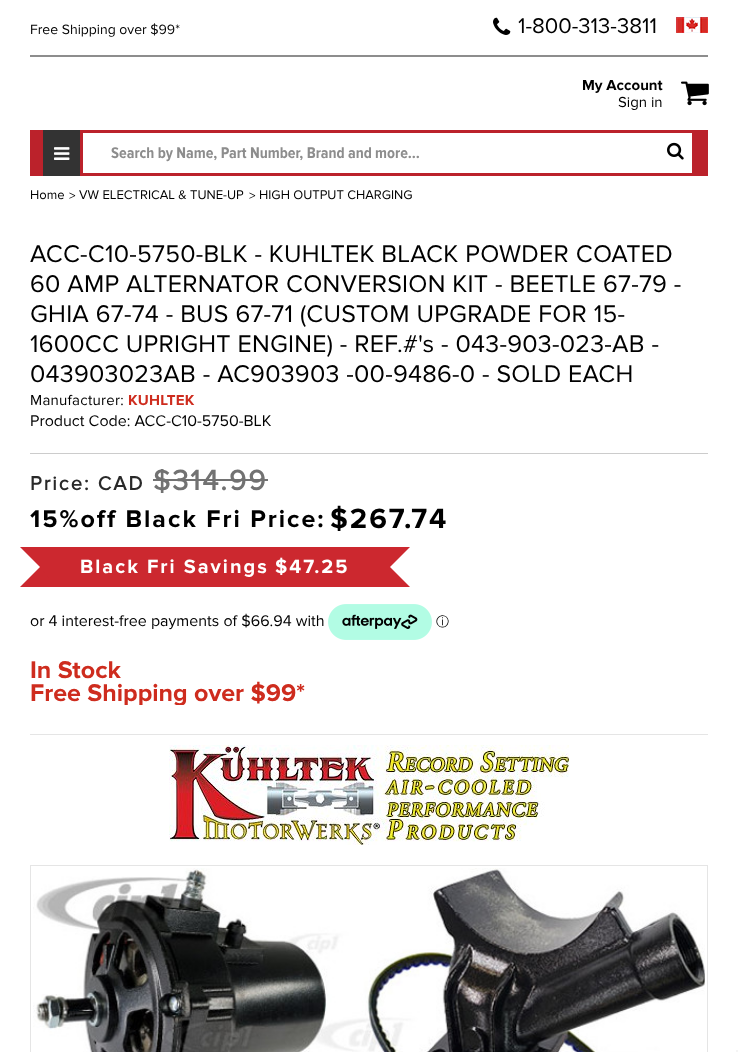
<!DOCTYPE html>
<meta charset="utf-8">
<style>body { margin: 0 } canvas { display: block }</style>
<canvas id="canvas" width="738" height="1052"></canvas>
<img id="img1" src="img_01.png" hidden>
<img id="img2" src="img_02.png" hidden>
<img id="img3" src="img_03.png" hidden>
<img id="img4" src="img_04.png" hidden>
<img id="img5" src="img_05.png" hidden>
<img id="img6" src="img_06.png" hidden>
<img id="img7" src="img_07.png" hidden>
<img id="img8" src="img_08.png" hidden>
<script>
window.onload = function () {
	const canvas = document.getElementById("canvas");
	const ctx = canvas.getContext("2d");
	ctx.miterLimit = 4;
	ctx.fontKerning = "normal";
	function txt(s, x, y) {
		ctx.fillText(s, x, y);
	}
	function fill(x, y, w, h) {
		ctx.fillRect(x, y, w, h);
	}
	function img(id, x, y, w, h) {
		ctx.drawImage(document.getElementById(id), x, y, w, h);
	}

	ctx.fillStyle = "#FFFFFF";
	fill(0, 0, 738, 1052);
	ctx.fillStyle = "#8D8D8D";
	fill(30, 55, 678, 2);
	img("img1", 493, 17, 18, 18);
	img("img2", 676, 17, 32, 16);
	img("img3", 681, 81, 28, 25);
	ctx.fillStyle = "#BB222B";
	fill(30, 130, 678, 46);
	ctx.fillStyle = "#333333";
	fill(43, 130, 37, 46);
	img("img4", 54, 147, 16, 13);
	ctx.fillStyle = "#FFFFFF";
	fill(83, 133, 609, 40);
	img("img5", 667, 142, 17, 18);
	ctx.fillStyle = "#E5E5E5";
	fill(30, 734, 678, 1);
	ctx.fillStyle = "#CCCCCC";
	fill(30, 453, 678, 1);
	ctx.fillStyle = "#727272";
	fill(153, 479, 115, 2);
	ctx.fillStyle = "#CC282F";
	ctx.beginPath();
	ctx.moveTo(20, 547);
	ctx.lineTo(56, 547);
	ctx.lineTo(40, 567);
	ctx.closePath();
	ctx.fill();
	fill(40, 554, 10, 26);
	ctx.beginPath();
	ctx.moveTo(56, 587);
	ctx.lineTo(20, 587);
	ctx.lineTo(40, 567);
	ctx.closePath();
	ctx.fill();
	ctx.beginPath();
	ctx.moveTo(374, 547);
	ctx.lineTo(410, 547);
	ctx.lineTo(390, 567);
	ctx.closePath();
	ctx.moveTo(410, 587);
	ctx.lineTo(374, 587);
	ctx.lineTo(390, 567);
	ctx.closePath();
	ctx.fill();
	fill(50, 547, 330, 40);
	fill(380, 554, 10, 26);
	img("img6", 328, 604, 104, 36);
	img("img7", 169, 745, 400, 100);
	ctx.strokeStyle = "#E5E5E5";
	ctx.strokeRect(30.5, 865.5, 677, 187);
	img("img8", 33, 868, 672, 184);
	ctx.fillStyle = "#F5F5F5";
	fill(736, 1050, 2, 2);
	ctx.font = "14px Proxima Nova";
	ctx.fillStyle = "#000000";
	txt("Free Shipping over $99*", 30, 34);
	ctx.font = "22px Proxima Nova";
	txt("1-800-313-3811", 518, 33);
	ctx.font = "bold 15px Proxima Nova";
	txt("My Account", 582, 90);
	ctx.font = "15px Proxima Nova";
	txt("Sign in", 618, 107);
	ctx.font = "bold 16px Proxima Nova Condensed";
	ctx.fillStyle = "#8D8D8D";
	txt("Search by Name, Part Number, Brand and more...", 111, 158);
	ctx.font = "13px Proxima Nova";
	ctx.fillStyle = "#000000";
	txt("Home", 30, 199);
	txt(">", 69, 200);
	txt("VW ELECTRICAL & TUNE-UP", 79, 199);
	txt(">", 249, 200);
	txt("HIGH OUTPUT CHARGING", 259, 199);
	ctx.letterSpacing = "0.25px";
	ctx.font = "25px Proxima Nova";
	txt("ACC-C10-5750-BLK - KUHLTEK BLACK POWDER COATED", 30, 262);
	txt("60 AMP ALTERNATOR CONVERSION KIT - BEETLE 67-79 -", 30, 292);
	txt("GHIA 67-74 - BUS 67-71 (CUSTOM UPGRADE FOR 15-", 30, 322);
	txt("1600CC UPRIGHT ENGINE) - REF.#'s - 043-903-023-AB -", 30, 352);
	txt("043903023AB - AC903903 -00-9486-0 - SOLD EACH", 30, 382);
	ctx.font = "15px Proxima Nova";
	txt("Manufacturer:", 30, 405);
	ctx.font = "bold 15px Proxima Nova";
	ctx.fillStyle = "#CE2C1E";
	txt("KUHLTEK", 128, 405);
	ctx.letterSpacing = "0px";
	ctx.font = "16px Proxima Nova";
	ctx.fillStyle = "#000000";
	txt("Product Code: ACC-C10-5750-BLK", 30, 426);
	ctx.letterSpacing = "2px";
	ctx.font = "bold 20px 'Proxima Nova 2'";
	ctx.fillStyle = "#292929";
	txt("Price: CAD", 30, 490);
	ctx.save();
	ctx.beginPath();
	ctx.rect(30, 469, 678, 28);
	ctx.clip();
	ctx.font = "bold 29px 'Proxima Nova 2'";
	ctx.fillStyle = "#727272";
	txt("$314.99", 153, 490);
	ctx.restore();
	ctx.font = "bold 25px Proxima Nova";
	ctx.fillStyle = "#000000";
	txt("15%off Black Fri Price:", 30, 527);
	ctx.font = "bold 29px Proxima Nova";
	txt("$267.74", 330, 528);
	ctx.font = "bold 20px Proxima Nova";
	ctx.fillStyle = "#FFFFFF";
	txt("Black Fri Savings", 80, 573);
	txt("$47.25", 275, 573);
	ctx.letterSpacing = "0px";
	ctx.font = "16px Proxima Nova";
	ctx.fillStyle = "#000000";
	txt("or 4 interest-free payments of $66.94 with", 30, 626);
	ctx.font = "500 13px WenQuanYi Zen Hei";
	txt("ⓘ", 436, 626);
	ctx.font = "bold 25px Proxima Nova";
	ctx.fillStyle = "#CE2C1E";
	txt("In Stock", 30, 678);
	ctx.save();
	ctx.beginPath();
	ctx.rect(30, 657, 320, 48);
	ctx.clip();
	txt("Free Shipping over $99*", 30, 701);
	ctx.restore();
};
</script>
